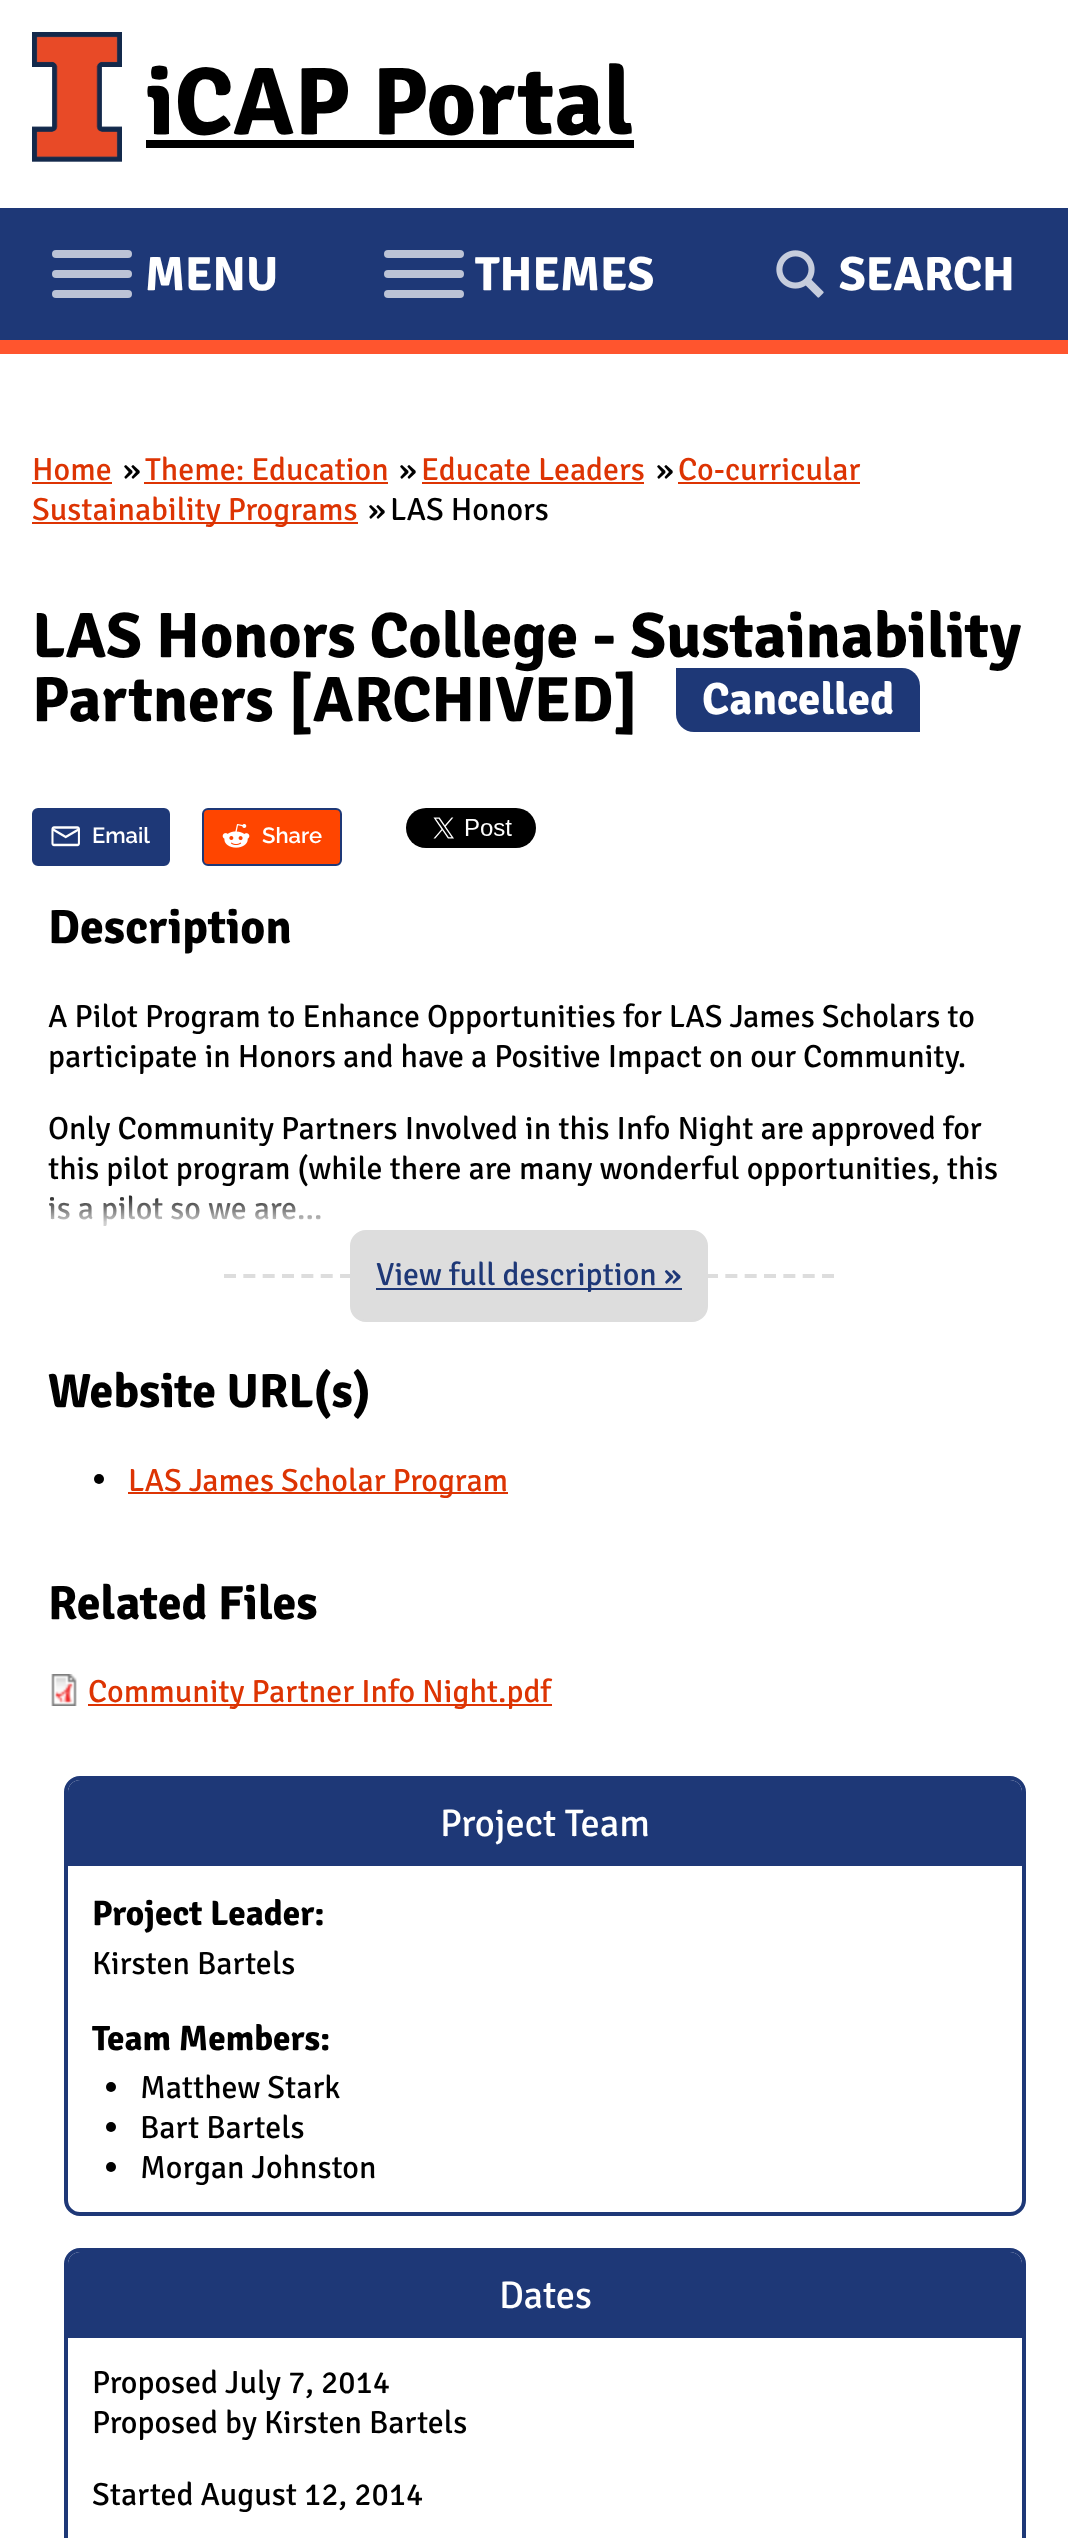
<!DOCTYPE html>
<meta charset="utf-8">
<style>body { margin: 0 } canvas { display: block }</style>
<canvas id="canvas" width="1068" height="2538"></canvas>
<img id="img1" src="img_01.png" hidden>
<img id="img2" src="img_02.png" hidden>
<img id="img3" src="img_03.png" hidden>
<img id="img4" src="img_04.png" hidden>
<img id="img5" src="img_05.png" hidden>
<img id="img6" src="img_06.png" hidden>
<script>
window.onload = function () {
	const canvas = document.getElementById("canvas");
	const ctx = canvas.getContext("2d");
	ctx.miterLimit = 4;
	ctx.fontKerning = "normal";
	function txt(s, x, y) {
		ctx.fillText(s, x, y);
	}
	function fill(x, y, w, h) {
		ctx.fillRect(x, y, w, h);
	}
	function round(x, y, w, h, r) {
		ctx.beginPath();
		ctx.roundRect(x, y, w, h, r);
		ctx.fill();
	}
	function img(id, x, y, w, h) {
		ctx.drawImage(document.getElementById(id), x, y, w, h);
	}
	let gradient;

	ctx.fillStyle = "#FFFFFF";
	fill(0, 0, 1068, 2538);
	img("img1", 32, 32, 90, 130);
	ctx.fillStyle = "#000000";
	fill(146, 140, 488, 8);
	ctx.fillStyle = "#FF552E";
	fill(0, 340, 1068, 14);
	ctx.fillStyle = "#1E3877";
	fill(0, 208, 1068, 132);
	ctx.fillStyle = "#BCC3D6";
	round(52, 290, 80, 8, 4);
	round(52, 250, 80, 8, 4);
	round(52, 270, 80, 8, 4);
	round(384, 290, 80, 8, 4);
	round(384, 250, 80, 8, 4);
	round(384, 270, 80, 8, 4);
	img("img2", 776, 250, 48, 48);
	ctx.fillStyle = "#DD3403";
	fill(32, 482, 80, 2);
	fill(144, 482, 244, 2);
	fill(422, 482, 222, 2);
	fill(678, 482, 182, 2);
	fill(32, 522, 326, 2);
	ctx.fillStyle = "#1E3877";
	ctx.beginPath();
	ctx.roundRect(33, 809, 136, 56, 5);
	ctx.fill();
	ctx.strokeStyle = "#1E3877";
	ctx.lineWidth = 2;
	ctx.stroke();
	img("img3", 51, 826, 29, 21);
	ctx.fillStyle = "#FF4500";
	ctx.beginPath();
	ctx.roundRect(203, 809, 138, 56, 5);
	ctx.fill();
	ctx.stroke();
	img("img4", 222, 824, 28, 24);
	img("img5", 406, 808, 130, 40);
	ctx.fillStyle = "#DDDDDD";
	ctx.beginPath();
	ctx.roundRect(351, 1231, 356, 90, 15);
	ctx.fill();
	ctx.strokeStyle = "#DDDDDD";
	ctx.stroke();
	ctx.beginPath();
	ctx.moveTo(224, 1276);
	ctx.lineTo(352, 1276);
	ctx.lineWidth = 4;
	ctx.setLineDash([12, 7.34]);
	ctx.stroke();
	ctx.fillStyle = "#1E3877";
	fill(376, 1288, 306, 2);
	ctx.beginPath();
	ctx.moveTo(706, 1276);
	ctx.lineTo(834, 1276);
	ctx.stroke();
	ctx.fillStyle = "#000000";
	ctx.beginPath();
	ctx.arc(99, 1479, 5, 0, Math.PI * 2);
	ctx.fill();
	ctx.fillStyle = "#DD3403";
	fill(128, 1492, 380, 2);
	img("img6", 51, 1674, 26, 32);
	fill(88, 1704, 464, 2);
	ctx.beginPath();
	ctx.roundRect(66, 1778, 958, 436, 14);
	ctx.strokeStyle = "#1E3877";
	ctx.setLineDash([]);
	ctx.stroke();
	ctx.fillStyle = "#1E3877";
	ctx.beginPath();
	ctx.roundRect(68, 1780, 954, 86, [12, 12, 0, 0]);
	ctx.fill();
	ctx.fillStyle = "#FFFFFF";
	ctx.beginPath();
	ctx.roundRect(68, 1866, 954, 346, [0, 0, 16, 16]);
	ctx.fill();
	ctx.fillStyle = "#000000";
	ctx.beginPath();
	ctx.arc(111, 2087, 5, 0, Math.PI * 2);
	ctx.fill();
	ctx.beginPath();
	ctx.arc(111, 2127, 5, 0, Math.PI * 2);
	ctx.fill();
	ctx.beginPath();
	ctx.arc(111, 2167, 5, 0, Math.PI * 2);
	ctx.fill();
	ctx.beginPath();
	ctx.roundRect(66, 2250, 958, 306, 14);
	ctx.stroke();
	ctx.fillStyle = "#1E3877";
	ctx.beginPath();
	ctx.roundRect(68, 2252, 954, 86, [12, 12, 0, 0]);
	ctx.fill();
	ctx.font = "bold 96px Signika";
	ctx.fillStyle = "#000000";
	txt("iCAP Portal", 146, 134);
	ctx.font = "bold 48px Signika";
	ctx.fillStyle = "#FFFFFF";
	txt("MENU", 145, 290);
	txt("THEMES", 475, 290);
	txt("SEARCH", 839, 290);
	ctx.font = "32px Signika";
	ctx.fillStyle = "#DD3403";
	txt("Home", 32, 480);
	ctx.fillStyle = "#000000";
	txt("»", 123, 480);
	ctx.fillStyle = "#DD3403";
	txt("Theme: Education", 145, 480);
	ctx.fillStyle = "#000000";
	txt("»", 399, 480);
	ctx.fillStyle = "#DD3403";
	txt("Educate Leaders", 421, 480);
	ctx.fillStyle = "#000000";
	txt("»", 656, 480);
	ctx.fillStyle = "#DD3403";
	txt("Co-curricular", 678, 480);
	txt("Sustainability Programs", 32, 520);
	ctx.fillStyle = "#000000";
	txt("»", 368, 520);
	txt("LAS Honors", 390, 520);
	ctx.font = "bold 64px Signika";
	txt("LAS Honors College - Sustainability", 32, 657);
	txt("Partners [ARCHIVED]", 32, 721);
	ctx.fillStyle = "#1E3877";
	ctx.beginPath();
	ctx.roundRect(676, 668, 244, 64, [0, 18, 0, 18]);
	ctx.fill();
	ctx.font = "bold 45px Signika";
	ctx.fillStyle = "#FFFFFF";
	txt("Cancelled", 702, 714);
	ctx.font = "600 22px Raleway";
	txt("Email", 92, 843);
	txt("Share", 262, 843);
	ctx.font = "bold 48px Signika";
	ctx.fillStyle = "#000000";
	txt("Description", 48, 943);
	ctx.font = "32px Signika";
	txt("A Pilot Program to Enhance Opportunities for LAS James Scholars to", 48, 1027);
	txt("participate in Honors and have a Positive Impact on our Community.", 48, 1067);
	txt("Only Community Partners Involved in this Info Night are approved for", 48, 1139);
	txt("this pilot program (while there are many wonderful opportunities, this", 48, 1179);
	txt("is a pilot so we are...", 48, 1219);
	gradient = ctx.createLinearGradient(529, 1190, 529, 1254);
	gradient.addColorStop(0, "rgba(255, 255, 255, 0)");
	gradient.addColorStop(0.5, "rgba(255, 255, 255, 0.8)");
	gradient.addColorStop(1, "#FFFFFF");
	ctx.fillStyle = gradient;
	fill(49, 1195, 272, 31);
	ctx.fillStyle = "#1E3877";
	txt("View full description »", 376, 1285);
	ctx.font = "bold 48px Signika";
	ctx.fillStyle = "#000000";
	txt("Website URL(s)", 48, 1407);
	ctx.font = "32px Signika";
	ctx.fillStyle = "#DD3403";
	txt("LAS James Scholar Program", 128, 1491);
	ctx.font = "bold 48px Signika";
	ctx.fillStyle = "#000000";
	txt("Related Files", 48, 1619);
	ctx.font = "32px Signika";
	ctx.fillStyle = "#DD3403";
	txt("Community Partner Info Night.pdf", 88, 1702);
	ctx.font = "38.5px Signika";
	ctx.fillStyle = "#FFFFFF";
	txt("Project Team", 440, 1836);
	ctx.font = "bold 35.25px Signika";
	ctx.fillStyle = "#000000";
	txt("Project Leader:", 92, 1925);
	ctx.font = "32px Signika";
	txt("Kirsten Bartels", 92, 1974);
	ctx.font = "bold 35.25px Signika";
	txt("Team Members:", 92, 2050);
	ctx.font = "32px Signika";
	txt("Matthew Stark", 140, 2098);
	txt("Bart Bartels", 140, 2138);
	txt("Morgan Johnston", 140, 2178);
	ctx.font = "38.5px Signika";
	ctx.fillStyle = "#FFFFFF";
	txt("Dates", 499, 2308);
	ctx.font = "32px Signika";
	ctx.fillStyle = "#000000";
	txt("Proposed July 7, 2014", 92, 2393);
	txt("Proposed by Kirsten Bartels", 92, 2433);
	txt("Started August 12, 2014", 92, 2505);
};
</script>
